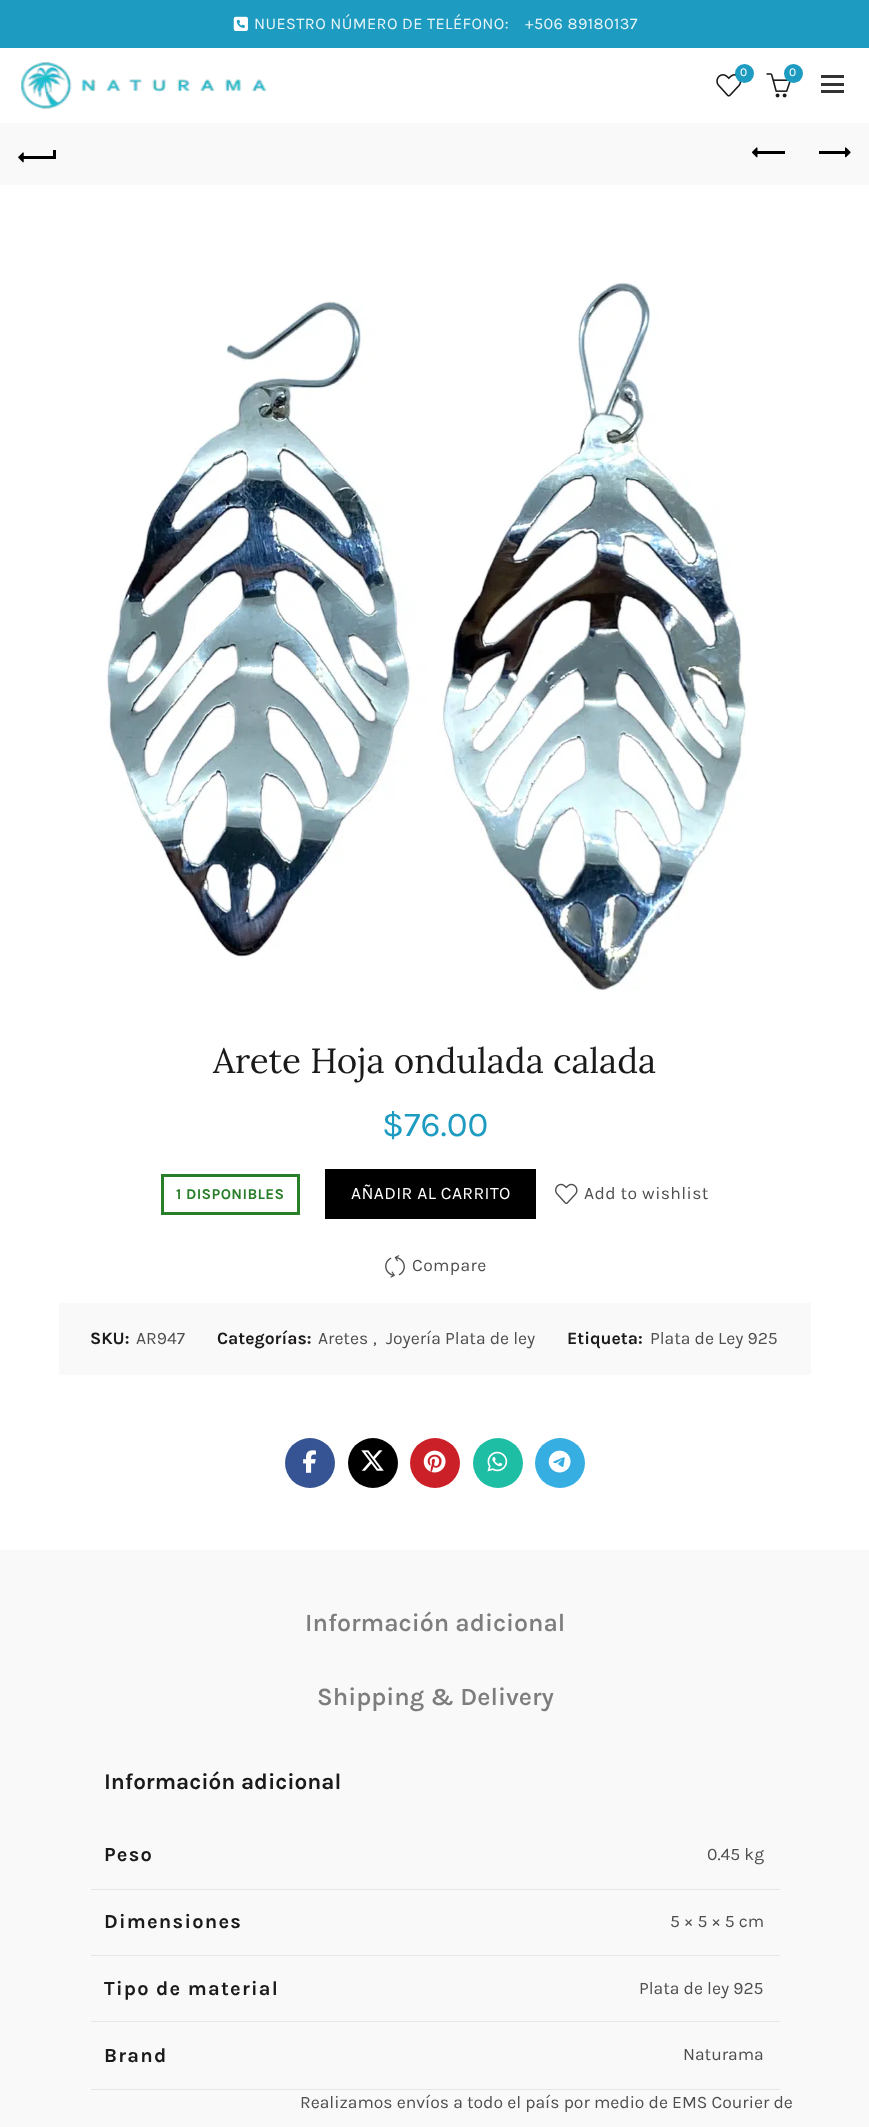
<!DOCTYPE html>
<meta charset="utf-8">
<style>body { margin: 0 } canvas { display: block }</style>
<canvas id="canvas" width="869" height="2127"></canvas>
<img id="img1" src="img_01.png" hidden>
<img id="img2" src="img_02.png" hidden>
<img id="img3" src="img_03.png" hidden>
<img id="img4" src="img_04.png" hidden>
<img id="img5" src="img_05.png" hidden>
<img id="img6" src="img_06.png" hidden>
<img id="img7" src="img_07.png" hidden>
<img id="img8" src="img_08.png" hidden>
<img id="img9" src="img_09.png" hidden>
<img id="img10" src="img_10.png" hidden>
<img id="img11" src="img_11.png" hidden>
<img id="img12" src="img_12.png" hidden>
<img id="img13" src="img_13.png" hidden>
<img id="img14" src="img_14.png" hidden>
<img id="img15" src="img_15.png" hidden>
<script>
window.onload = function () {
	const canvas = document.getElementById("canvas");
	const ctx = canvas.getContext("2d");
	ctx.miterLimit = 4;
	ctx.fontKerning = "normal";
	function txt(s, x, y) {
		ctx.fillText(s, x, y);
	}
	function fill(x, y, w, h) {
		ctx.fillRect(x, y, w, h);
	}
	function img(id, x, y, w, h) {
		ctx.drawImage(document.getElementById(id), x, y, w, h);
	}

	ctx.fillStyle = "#FFFFFF";
	fill(0, 0, 869, 2127);
	ctx.fillStyle = "#1D9BC1";
	fill(0, 0, 869, 48);
	img("img1", 233, 16, 15, 15);
	img("img2", 21, 62, 246, 47);
	img("img3", 716, 74, 26, 23);
	ctx.beginPath();
	ctx.arc(744.5, 73.5, 9.5, 0, Math.PI * 2);
	ctx.fill();
	img("img4", 766, 73, 25, 25);
	ctx.beginPath();
	ctx.arc(793.5, 73.5, 9.5, 0, Math.PI * 2);
	ctx.fill();
	ctx.fillStyle = "#333333";
	fill(821, 83, 23, 3);
	fill(821, 75, 23, 3);
	fill(821, 90, 23, 3);
	ctx.fillStyle = "#F9F9F9";
	fill(0, 123, 869, 62);
	ctx.fillStyle = "#000000";
	fill(23, 156, 31, 3);
	img("img5", 18, 152, 6, 11);
	fill(53, 150, 3, 9);
	fill(756, 151, 29, 3);
	img("img6", 751, 147, 7, 11);
	fill(819, 151, 29, 3);
	img("img7", 845, 147, 6, 11);
	img("img8", 106, 281, 641, 710);
	ctx.strokeStyle = "#297E29";
	ctx.lineWidth = 3;
	ctx.strokeRect(162.5, 1175.5, 136, 38);
	fill(325, 1169, 211, 50);
	img("img9", 555, 1183, 23, 21);
	img("img10", 385, 1255, 20, 23);
	ctx.fillStyle = "#F9F9F9";
	fill(59, 1303, 752, 72);
	ctx.fillStyle = "#365493";
	ctx.beginPath();
	ctx.arc(310, 1463, 25, 0, Math.PI * 2);
	ctx.fill();
	img("img11", 303, 1450, 13, 23);
	ctx.fillStyle = "#000000";
	ctx.beginPath();
	ctx.arc(373, 1463, 25, 0, Math.PI * 2);
	ctx.fill();
	img("img12", 361, 1450, 23, 21);
	ctx.fillStyle = "#CB2027";
	ctx.beginPath();
	ctx.arc(435, 1463, 25, 0, Math.PI * 2);
	ctx.fill();
	img("img13", 423, 1450, 23, 23);
	ctx.fillStyle = "#1EBEA5";
	ctx.beginPath();
	ctx.arc(498, 1463, 25, 0, Math.PI * 2);
	ctx.fill();
	img("img14", 487, 1451, 21, 21);
	ctx.fillStyle = "#37AEE2";
	ctx.beginPath();
	ctx.arc(560, 1463, 25, 0, Math.PI * 2);
	ctx.fill();
	img("img15", 548, 1450, 23, 23);
	ctx.fillStyle = "#F9F9F9";
	fill(0, 1550, 869, 577);
	ctx.fillStyle = "#E6E6E6";
	fill(91, 1889, 689, 1);
	fill(91, 1955, 689, 1);
	fill(91, 2021, 689, 1);
	fill(91, 2089, 689, 1);
	ctx.letterSpacing = "0.4px";
	ctx.font = "16.25px Karla";
	ctx.fillStyle = "#E8F5F9";
	txt("NUESTRO NÚMERO DE TELÉFONO:", 254, 29);
	txt("+506 89180137", 525, 29);
	ctx.letterSpacing = "0px";
	ctx.font = "12px Karla";
	ctx.fillStyle = "#FFFFFF";
	txt("0", 740, 76);
	txt("0", 789, 76);
	ctx.font = "35px Lora";
	ctx.fillStyle = "#1B1919";
	txt("Arete Hoja ondulada calada", 213, 1073);
	ctx.font = "35px Karla";
	ctx.fillStyle = "#1D9BC1";
	txt("$76.00", 382, 1136);
	ctx.letterSpacing = "0.4px";
	ctx.font = "bold 15px Karla";
	ctx.fillStyle = "#297E29";
	txt("1 DISPONIBLES", 176, 1199);
	ctx.font = "17.5px Karla";
	ctx.fillStyle = "#FFFFFF";
	txt("AÑADIR AL CARRITO", 351, 1199);
	ctx.fillStyle = "#4E4E4E";
	txt("Add to wishlist", 584, 1199);
	txt("Compare", 412, 1271);
	ctx.letterSpacing = "0px";
	ctx.font = "bold 17.5px Karla";
	ctx.fillStyle = "#1B1919";
	txt("SKU:", 90, 1344);
	ctx.font = "17.5px Karla";
	ctx.fillStyle = "#4E4E4E";
	txt("AR947", 136, 1344);
	ctx.font = "bold 17.5px Karla";
	ctx.fillStyle = "#1B1919";
	txt("Categorías:", 217, 1344);
	ctx.font = "17.5px Karla";
	ctx.fillStyle = "#4E4E4E";
	txt("Aretes", 318, 1344);
	txt(",", 373, 1344);
	txt("Joyería Plata de ley", 386, 1344);
	ctx.font = "bold 17.5px Karla";
	ctx.fillStyle = "#1B1919";
	txt("Etiqueta:", 567, 1344);
	ctx.font = "17.5px Karla";
	ctx.fillStyle = "#4E4E4E";
	txt("Plata de Ley 925", 650, 1344);
	ctx.font = "600 25px Karla";
	ctx.fillStyle = "#7D7D7D";
	txt("Información adicional", 305, 1631);
	txt("Shipping & Delivery", 317, 1705);
	ctx.font = "bold 22.5px Karla";
	ctx.fillStyle = "#1B1919";
	txt("Información adicional", 104, 1789);
	ctx.letterSpacing = "1.25px";
	ctx.font = "bold 20px Karla";
	txt("Peso", 104, 1861);
	ctx.letterSpacing = "0px";
	ctx.font = "17.5px Karla";
	ctx.fillStyle = "#4E4E4E";
	txt("0.45 kg", 707, 1860);
	ctx.letterSpacing = "1.25px";
	ctx.font = "bold 20px Karla";
	ctx.fillStyle = "#1B1919";
	txt("Dimensiones", 104, 1928);
	ctx.letterSpacing = "0px";
	ctx.font = "17.5px Karla";
	ctx.fillStyle = "#4E4E4E";
	txt("5 × 5 × 5 cm", 670, 1927);
	ctx.letterSpacing = "1.25px";
	ctx.font = "bold 20px Karla";
	ctx.fillStyle = "#1B1919";
	txt("Tipo de material", 104, 1995);
	ctx.letterSpacing = "0px";
	ctx.font = "17.5px Karla";
	ctx.fillStyle = "#4E4E4E";
	txt("Plata de ley 925", 639, 1994);
	ctx.letterSpacing = "1.25px";
	ctx.font = "bold 20px Karla";
	ctx.fillStyle = "#1B1919";
	txt("Brand", 104, 2062);
	ctx.letterSpacing = "0px";
	ctx.font = "17.5px Karla";
	ctx.fillStyle = "#4E4E4E";
	txt("Naturama", 683, 2060);
	txt("Realizamos envíos a todo el país por medio de EMS Courier de", 300, 2108);
};
</script>
